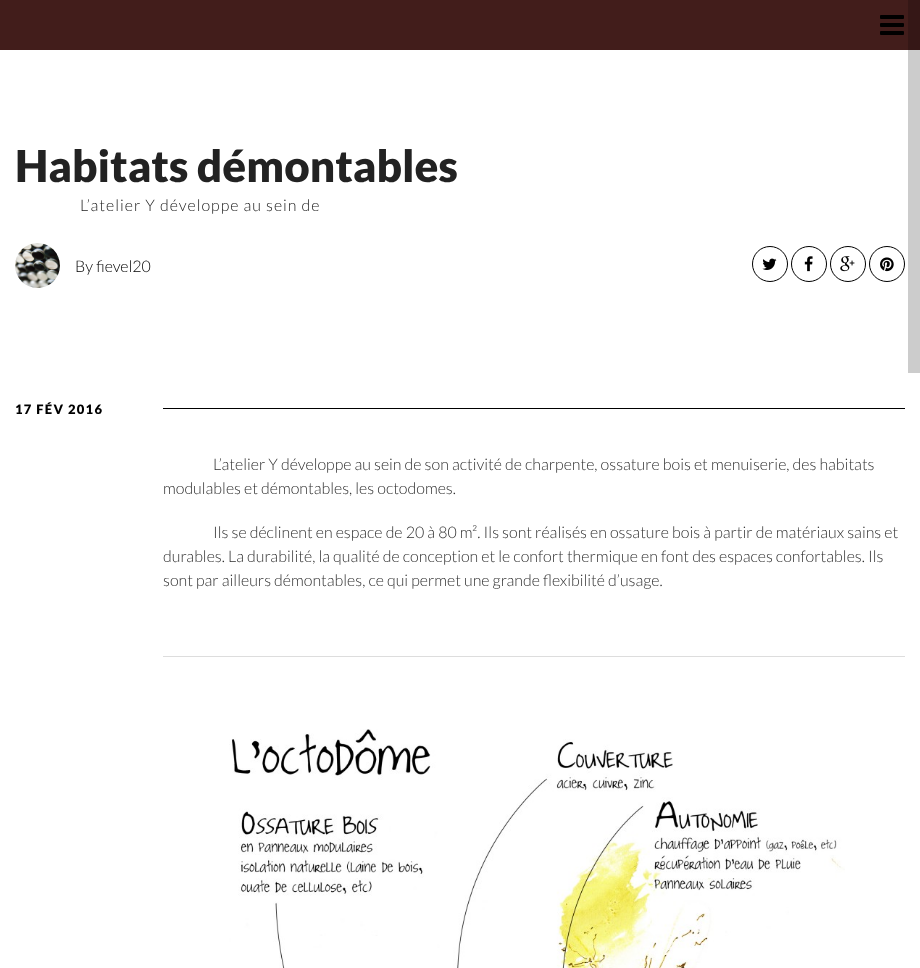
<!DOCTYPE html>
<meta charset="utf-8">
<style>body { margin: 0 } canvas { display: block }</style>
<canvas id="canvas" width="920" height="968"></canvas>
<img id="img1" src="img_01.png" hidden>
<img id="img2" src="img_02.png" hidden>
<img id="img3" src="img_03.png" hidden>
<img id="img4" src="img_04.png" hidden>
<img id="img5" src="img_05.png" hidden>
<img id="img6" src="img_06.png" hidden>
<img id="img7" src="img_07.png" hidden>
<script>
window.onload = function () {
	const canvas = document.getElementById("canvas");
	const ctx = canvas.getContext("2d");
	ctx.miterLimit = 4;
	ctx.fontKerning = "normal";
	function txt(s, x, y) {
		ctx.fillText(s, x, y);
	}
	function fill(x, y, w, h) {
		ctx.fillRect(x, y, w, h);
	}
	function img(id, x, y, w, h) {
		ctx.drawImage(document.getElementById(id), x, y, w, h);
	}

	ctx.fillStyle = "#FFFFFF";
	fill(0, 0, 920, 968);
	ctx.fillStyle = "#CCCCCC";
	fill(908, 50, 12, 323);
	ctx.fillStyle = "#421D1B";
	fill(0, 0, 908, 50);
	ctx.fillStyle = "#351716";
	fill(908, 0, 12, 50);
	img("img1", 880, 15, 24, 20);
	img("img2", 15, 243, 45, 45);
	ctx.beginPath();
	ctx.arc(770, 264, 17.5, 0, Math.PI * 2);
	ctx.strokeStyle = "#000000";
	ctx.stroke();
	img("img3", 762, 258, 15, 12);
	ctx.beginPath();
	ctx.arc(809, 264, 17.5, 0, Math.PI * 2);
	ctx.stroke();
	img("img4", 804, 256, 9, 16);
	ctx.beginPath();
	ctx.arc(848, 264, 17.5, 0, Math.PI * 2);
	ctx.stroke();
	img("img5", 840, 256, 15, 16);
	ctx.beginPath();
	ctx.arc(887, 264, 17.5, 0, Math.PI * 2);
	ctx.stroke();
	img("img6", 880, 257, 14, 15);
	ctx.fillStyle = "#000000";
	fill(163, 408, 742, 1);
	ctx.fillStyle = "#DDDDDD";
	fill(163, 656, 742, 1);
	img("img7", 229, 729, 616, 239);
	ctx.font = "900 44px Lato";
	ctx.fillStyle = "#222222";
	txt("Habitats démontables", 15, 182);
	ctx.letterSpacing = "1px";
	ctx.font = "300 16px Lato";
	txt("L’atelier Y développe au sein de", 80, 211);
	ctx.letterSpacing = "0px";
	ctx.fillStyle = "#000000";
	txt("By fievel20", 75, 272);
	ctx.letterSpacing = "1.25px";
	ctx.font = "900 13px Lato";
	txt("17 FÉV 2016", 15, 414);
	ctx.letterSpacing = "0px";
	ctx.font = "300 16px Lato";
	ctx.fillStyle = "#313131";
	txt("L’atelier Y développe au sein de son activité de charpente, ossature bois et menuiserie, des habitats", 213, 470);
	txt("modulables et démontables, les octodomes.", 163, 494);
	txt("Ils se déclinent en espace de 20 à 80 m². Ils sont réalisés en ossature bois à partir de matériaux sains et", 213, 538);
	txt("durables. La durabilité, la qualité de conception et le confort thermique en font des espaces confortables. Ils", 163, 562);
	txt("sont par ailleurs démontables, ce qui permet une grande flexibilité d’usage.", 163, 586);
};
</script>
